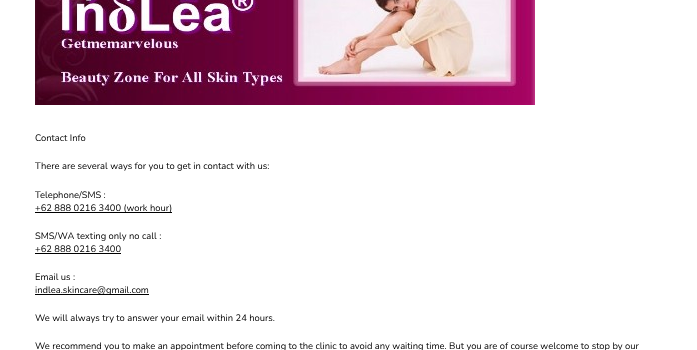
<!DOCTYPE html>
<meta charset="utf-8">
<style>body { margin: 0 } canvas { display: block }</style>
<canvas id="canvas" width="697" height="350"></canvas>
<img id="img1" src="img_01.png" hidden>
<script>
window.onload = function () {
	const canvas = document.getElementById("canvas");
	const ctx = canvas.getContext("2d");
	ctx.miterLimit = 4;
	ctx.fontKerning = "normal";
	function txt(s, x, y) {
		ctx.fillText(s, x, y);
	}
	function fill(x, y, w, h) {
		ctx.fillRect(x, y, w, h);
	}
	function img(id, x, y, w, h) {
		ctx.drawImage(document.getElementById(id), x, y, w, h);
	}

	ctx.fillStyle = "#FFFFFF";
	fill(0, 0, 697, 350);
	img("img1", 35, 0, 500, 105);
	ctx.fillStyle = "#000000";
	fill(35, 212, 137, 1);
	fill(35, 253, 86, 1);
	fill(35, 294, 114, 1);
	ctx.font = "9.38px Nunito";
	txt("Contact Info", 35, 141);
	txt("There are several ways for you to get in contact with us:", 35, 169);
	txt("Telephone/SMS :", 35, 198);
	txt("+62 888 0216 3400 (work hour)", 35, 211);
	txt("SMS/WA texting only no call :", 35, 239);
	txt("+62 888 0216 3400", 35, 252);
	txt("Email us :", 35, 280);
	txt("indlea.skincare@gmail.com", 35, 293);
	txt("We will always try to answer your email within 24 hours.", 35, 321);
	txt("We recommend you to make an appointment before coming to the clinic to avoid any waiting time. But you are of course welcome to stop by our", 35, 349);
};
</script>
